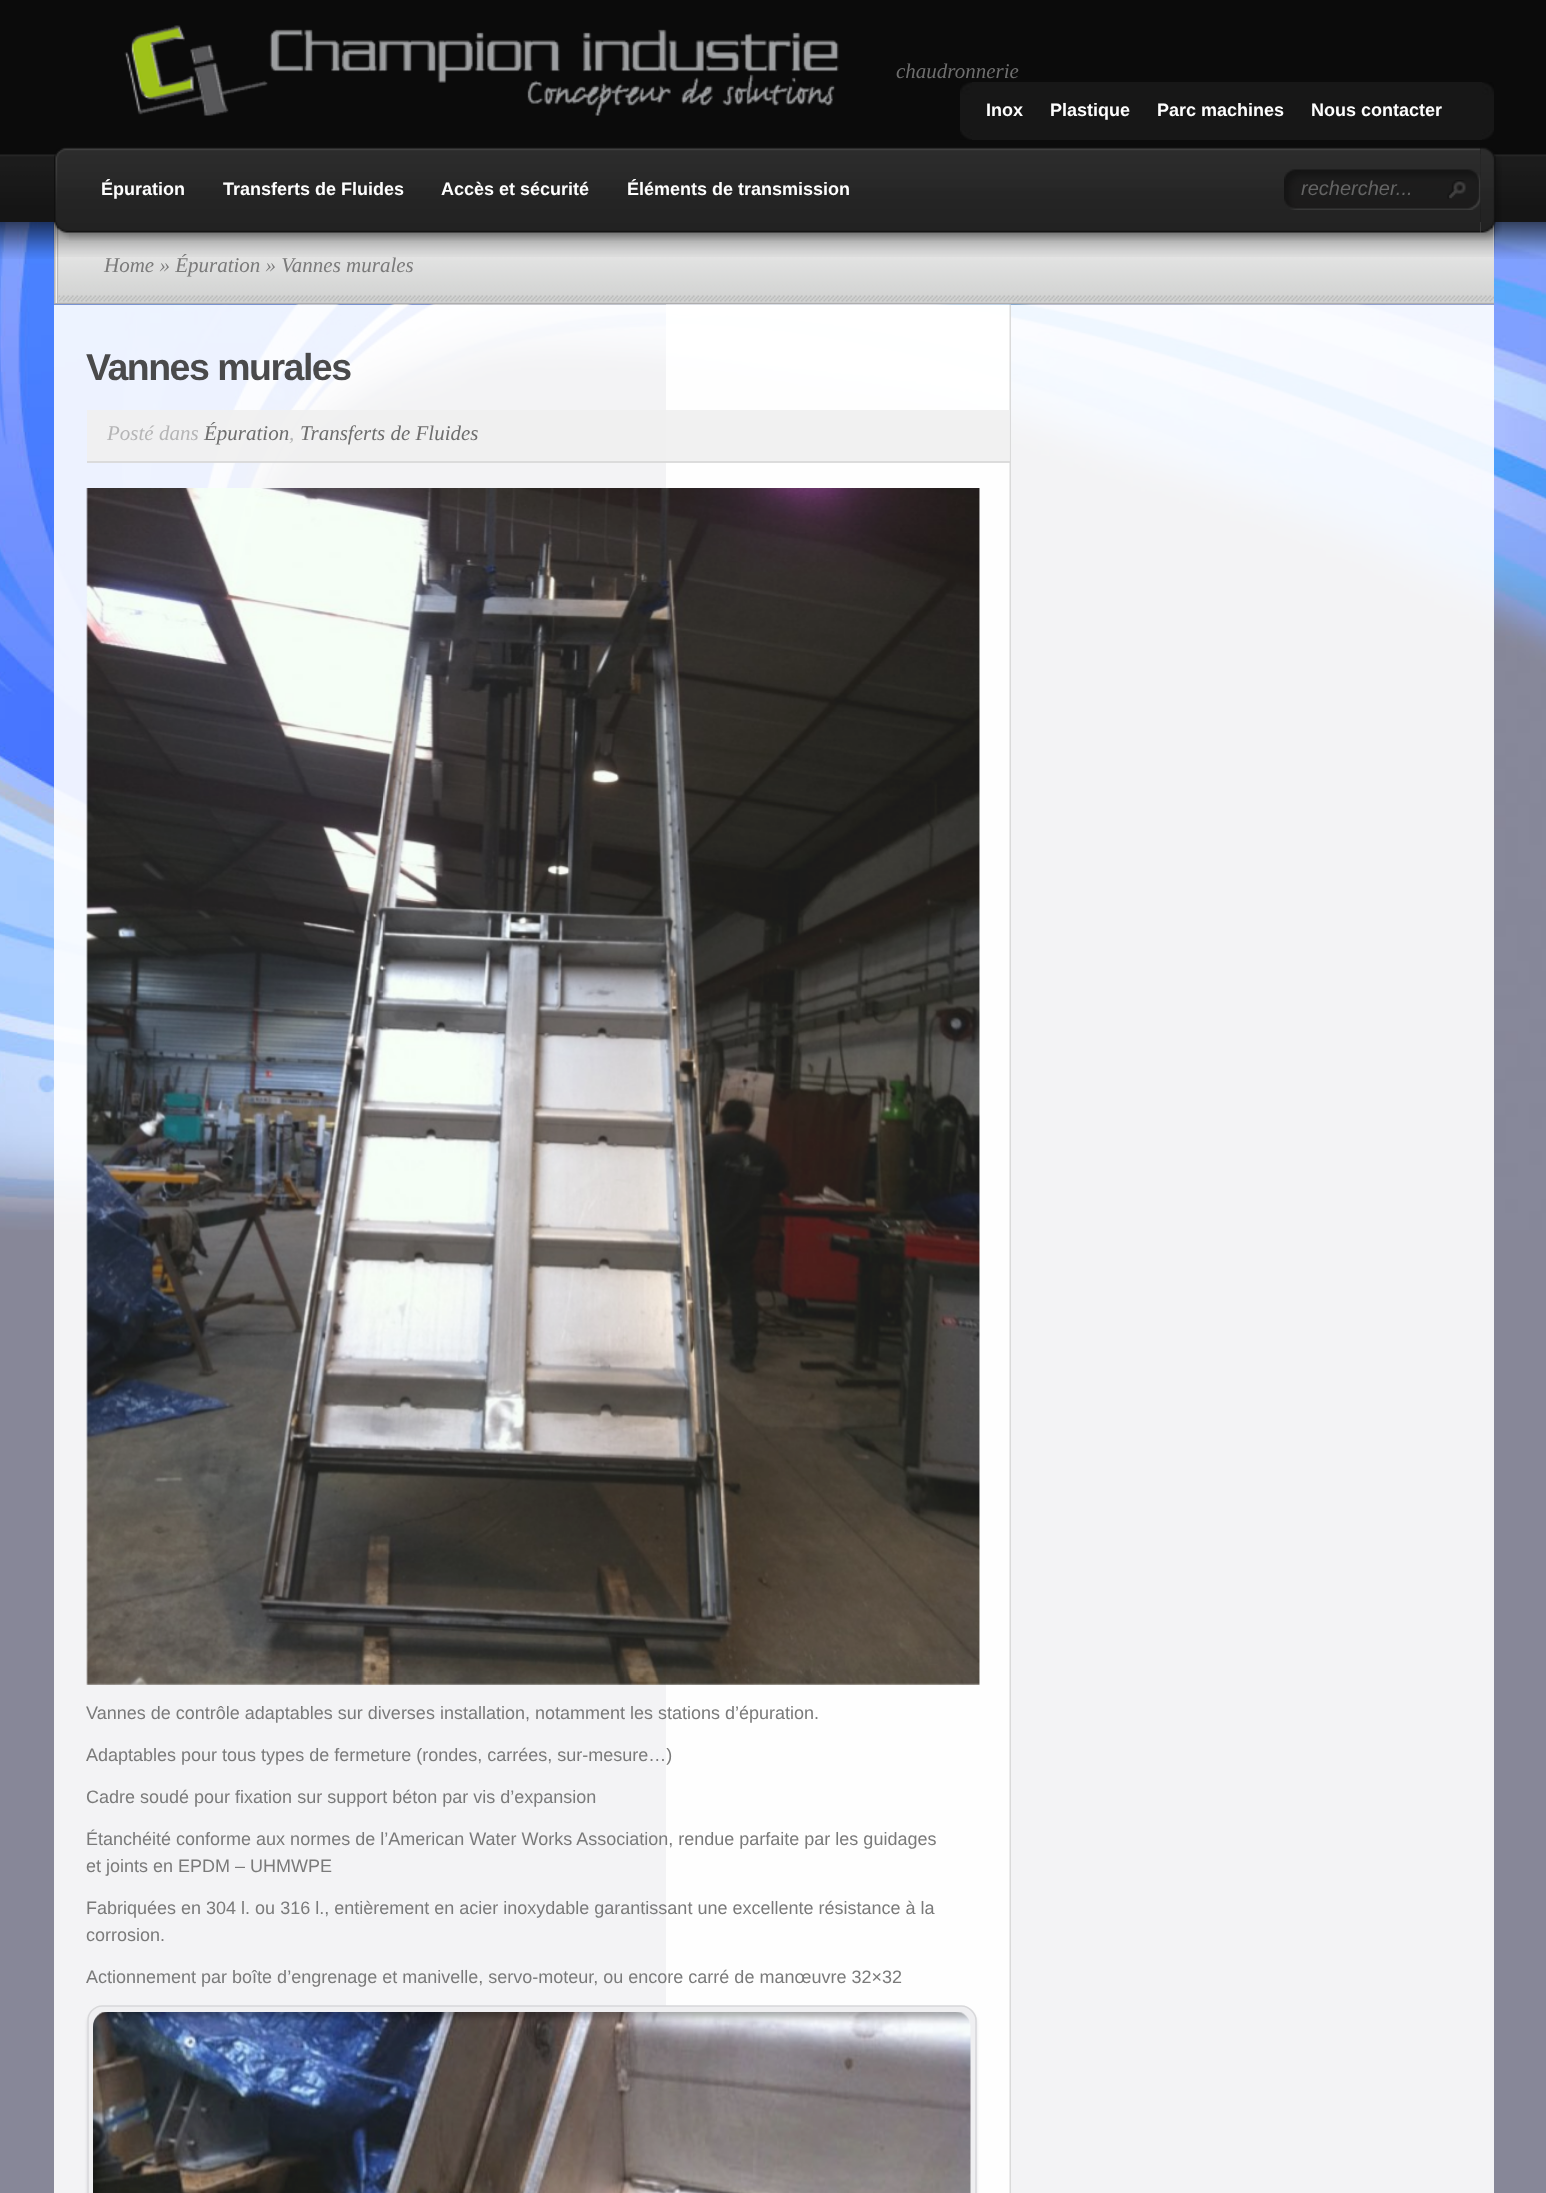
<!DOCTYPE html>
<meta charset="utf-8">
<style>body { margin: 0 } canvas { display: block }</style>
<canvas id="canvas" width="1546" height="2193"></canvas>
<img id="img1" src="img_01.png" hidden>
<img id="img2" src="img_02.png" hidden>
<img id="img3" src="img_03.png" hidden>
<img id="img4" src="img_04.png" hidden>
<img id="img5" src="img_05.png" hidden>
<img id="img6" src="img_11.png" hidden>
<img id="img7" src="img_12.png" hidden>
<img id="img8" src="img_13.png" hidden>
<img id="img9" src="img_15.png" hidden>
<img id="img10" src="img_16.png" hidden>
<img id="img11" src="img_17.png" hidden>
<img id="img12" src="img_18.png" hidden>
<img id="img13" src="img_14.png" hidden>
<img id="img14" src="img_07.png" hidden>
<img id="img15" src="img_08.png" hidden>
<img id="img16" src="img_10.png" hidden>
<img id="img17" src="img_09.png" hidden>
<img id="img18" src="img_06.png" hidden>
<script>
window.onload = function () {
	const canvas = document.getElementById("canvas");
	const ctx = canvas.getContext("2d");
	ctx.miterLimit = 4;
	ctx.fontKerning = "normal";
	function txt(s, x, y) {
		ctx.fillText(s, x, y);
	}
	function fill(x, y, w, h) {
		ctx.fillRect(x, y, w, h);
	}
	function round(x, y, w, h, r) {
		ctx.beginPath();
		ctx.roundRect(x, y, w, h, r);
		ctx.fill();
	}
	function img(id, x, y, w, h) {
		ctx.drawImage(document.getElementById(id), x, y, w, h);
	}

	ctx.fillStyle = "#878798";
	fill(0, 0, 1546, 2193);
	img("img1", 0, 222, 1546, 1008);
	ctx.fillStyle = "#0B0B0B";
	fill(0, 0, 1546, 155);
	img("img2", 0, 154, 1546, 68);
	img("img3", 124, 25, 715, 91);
	img("img4", 960, 82, 12, 58);
	ctx.fillStyle = "#171717";
	fill(972, 82, 510, 58);
	img("img5", 1482, 82, 12, 58);
	img("img6", 0, 222, 1546, 37);
	img("img7", 54, 222, 1440, 83);
	ctx.fillStyle = "rgba(255, 255, 255, 0.9)";
	fill(54, 305, 1440, 1888);
	img("img8", 666, 304, 345, 1889);
	img("img9", 54, 222, 5, 81);
	ctx.fillStyle = "rgba(239, 239, 239, 0.9)";
	fill(87, 410, 923, 52);
	ctx.fillStyle = "rgba(216, 216, 216, 0.9)";
	fill(87, 461, 923, 2);
	img("img10", 86, 488, 894, 1197);
	ctx.fillStyle = "rgba(14, 14, 15, 0.1)";
	ctx.filter = "blur(1.5px)";
	ctx.beginPath();
	ctx.roundRect(87, 2009, 890, 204, 15);
	ctx.fill();
	ctx.filter = "none";
	ctx.fillStyle = "#EFEFF1";
	round(87, 2006, 890, 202, 15);
	ctx.beginPath();
	ctx.moveTo(92, 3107.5);
	ctx.bezierCurveTo(89.5, 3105, 88, 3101.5, 88, 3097.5);
	ctx.lineTo(88, 2020.5);
	ctx.bezierCurveTo(88, 2016.5, 89.5, 2013, 92, 2010.5);
	ctx.bezierCurveTo(94.5, 2008, 98, 2006, 102, 2006);
	ctx.lineTo(961.5, 2006);
	ctx.bezierCurveTo(965.5, 2006, 969, 2008, 971.5, 2010.5);
	ctx.bezierCurveTo(974, 2013, 976, 2016.5, 976, 2020.5);
	ctx.lineTo(976, 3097.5);
	ctx.bezierCurveTo(976, 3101.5, 974, 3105, 971.5, 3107.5);
	ctx.strokeStyle = "#D8D8DA";
	ctx.lineWidth = 1.5;
	ctx.stroke();
	img("img11", 93, 2012, 878, 181);
	img("img12", 93, 2012, 876, 181);
	ctx.font = "italic 21px Liberation Serif";
	ctx.fillStyle = "#6E6E6E";
	txt("chaudronnerie", 896, 78);
	ctx.font = "bold 18px Liberation Sans";
	ctx.fillStyle = "#FEFEFE";
	txt("Inox", 986, 116);
	txt("Plastique", 1050, 116);
	txt("Parc machines", 1157, 116);
	txt("Nous contacter", 1311, 116);
	ctx.font = "italic 21px Liberation Serif";
	ctx.fillStyle = "#7A7A7A";
	txt("Home » Épuration » Vannes murales", 104, 272);
	img("img13", 53, 222, 1442, 35);
	img("img14", 69, 147, 1412, 94);
	ctx.font = "bold 18px Liberation Sans";
	ctx.fillStyle = "#FEFEFE";
	txt("Éléments de transmission", 627, 195);
	txt("Accès et sécurité", 441, 195);
	txt("Transferts de Fluides", 223, 195);
	txt("Épuration", 101, 195);
	img("img15", 1284, 169, 197, 41);
	img("img16", 1480, 147, 22, 94);
	img("img17", 1447, 180, 19, 19);
	ctx.font = "italic 20px Liberation Sans";
	ctx.fillStyle = "#646464";
	txt("rechercher...", 1301, 195);
	img("img18", 54, 147, 15, 93);
	ctx.letterSpacing = "-1.5px";
	ctx.font = "bold 37.5px Liberation Sans";
	ctx.fillStyle = "#4A4A4B";
	txt("Vannes murales", 86, 380);
	ctx.letterSpacing = "0px";
	ctx.font = "italic 21px Liberation Serif";
	ctx.fillStyle = "#B5B5B6";
	txt("Posté dans", 107, 440);
	ctx.fillStyle = "#6E6E6E";
	txt("Épuration", 204, 440);
	ctx.fillStyle = "#B5B5B6";
	txt(",", 289, 440);
	ctx.fillStyle = "#6E6E6E";
	txt("Transferts de Fluides", 300, 440);
	ctx.font = "18px Liberation Sans";
	ctx.fillStyle = "#7A7A7A";
	txt("Vannes de contrôle adaptables sur diverses installation, notamment les stations d’épuration.", 86, 1719);
	txt("Adaptables pour tous types de fermeture (rondes, carrées, sur-mesure…)", 86, 1761);
	txt("Cadre soudé pour fixation sur support béton par vis d’expansion", 86, 1803);
	txt("Étanchéité conforme aux normes de l’American Water Works Association, rendue parfaite par les guidages", 86, 1845);
	txt("et joints en EPDM – UHMWPE", 86, 1872);
	txt("Fabriquées en 304 l. ou 316 l., entièrement en acier inoxydable garantissant une excellente résistance à la", 86, 1914);
	txt("corrosion.", 86, 1941);
	txt("Actionnement par boîte d’engrenage et manivelle, servo-moteur, ou encore carré de manœuvre 32×32", 86, 1983);
};
</script>
